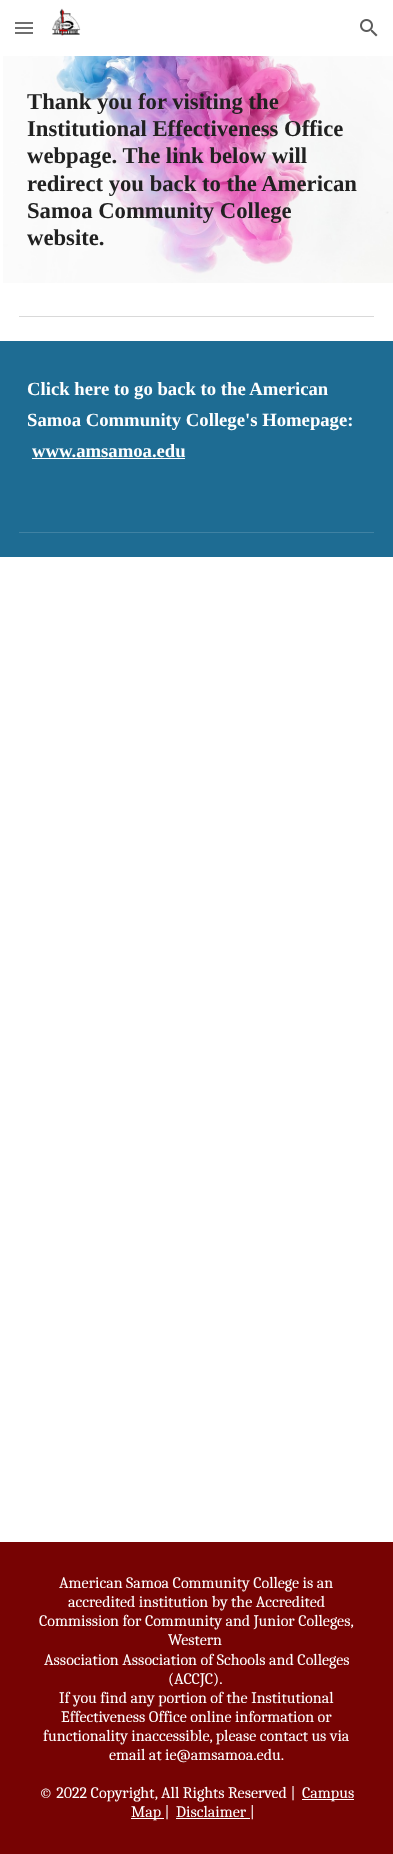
<!DOCTYPE html>
<meta charset="utf-8">
<style>body { margin: 0 } canvas { display: block }</style>
<canvas id="canvas" width="393" height="1854"></canvas>
<img id="img1" src="img_01.png" hidden>
<img id="img2" src="img_02.png" hidden>
<img id="img3" src="img_03.png" hidden>
<script>
window.onload = function () {
	const canvas = document.getElementById("canvas");
	const ctx = canvas.getContext("2d");
	ctx.miterLimit = 4;
	ctx.fontKerning = "normal";
	function txt(s, x, y) {
		ctx.fillText(s, x, y);
	}
	function fill(x, y, w, h) {
		ctx.fillRect(x, y, w, h);
	}
	function img(id, x, y, w, h) {
		ctx.drawImage(document.getElementById(id), x, y, w, h);
	}

	ctx.fillStyle = "#FFFFFF";
	fill(0, 0, 393, 1854);
	ctx.fillStyle = "#5C5C5C";
	fill(15, 22, 18, 2);
	fill(15, 27, 18, 2);
	fill(15, 32, 18, 2);
	ctx.fillStyle = "rgba(255, 255, 255, 0.12)";
	fill(15, 22, 18, 12);
	img("img1", 52, 8, 29, 28);
	img("img2", 360, 19, 18, 18);
	img("img3", 3, 56, 390, 227);
	ctx.fillStyle = "#D9D9D9";
	fill(19, 316, 355, 1);
	ctx.fillStyle = "#1E6C93";
	fill(0, 341, 393, 216);
	ctx.fillStyle = "#FFFFFF";
	fill(32, 458, 153, 1);
	ctx.fillStyle = "#4082A3";
	fill(19, 532, 355, 1);
	ctx.fillStyle = "#770303";
	fill(0, 1542, 393, 312);
	ctx.fillStyle = "#FFFFFF";
	fill(302, 1799, 52, 1);
	fill(131, 1818, 33, 1);
	fill(176, 1818, 74, 1);
	ctx.font = "bold 22.7px Liberation Serif";
	ctx.fillStyle = "#212121";
	txt("Thank you for visiting the", 27, 109);
	txt("Institutional Effectiveness Office", 27, 136);
	txt("webpage. The link below will", 27, 163);
	txt("redirect you back to the American", 27, 191);
	txt("Samoa Community College", 27, 218);
	txt("website.", 27, 245);
	ctx.font = "bold 18.7px Liberation Serif";
	ctx.fillStyle = "#FFFFFF";
	txt("Click here to go back to the American", 27, 395);
	txt("Samoa Community College's Homepage:", 27, 426);
	txt("www.amsamoa.edu", 32, 457);
	ctx.font = "16px Caladea";
	txt("American Samoa Community College is an", 59, 1588);
	txt("accredited institution by the Accredited", 68, 1607);
	txt("Commission for Community and Junior Colleges,", 39, 1626);
	txt("Western", 168, 1645);
	txt("Association Association of Schools and Colleges", 44, 1665);
	txt("(ACCJC).", 168, 1684);
	txt("If you find any portion of the Institutional", 59, 1703);
	txt("Effectiveness Office online information or", 61, 1722);
	txt("functionality inaccessible, please contact us via", 43, 1741);
	txt("email at ie@amsamoa.edu.", 109, 1760);
	txt("© 2022 Copyright, All Rights Reserved |", 39, 1798);
	txt("Campus", 302, 1798);
	txt("Map |", 131, 1817);
	txt("Disclaimer |", 176, 1817);
};
</script>
